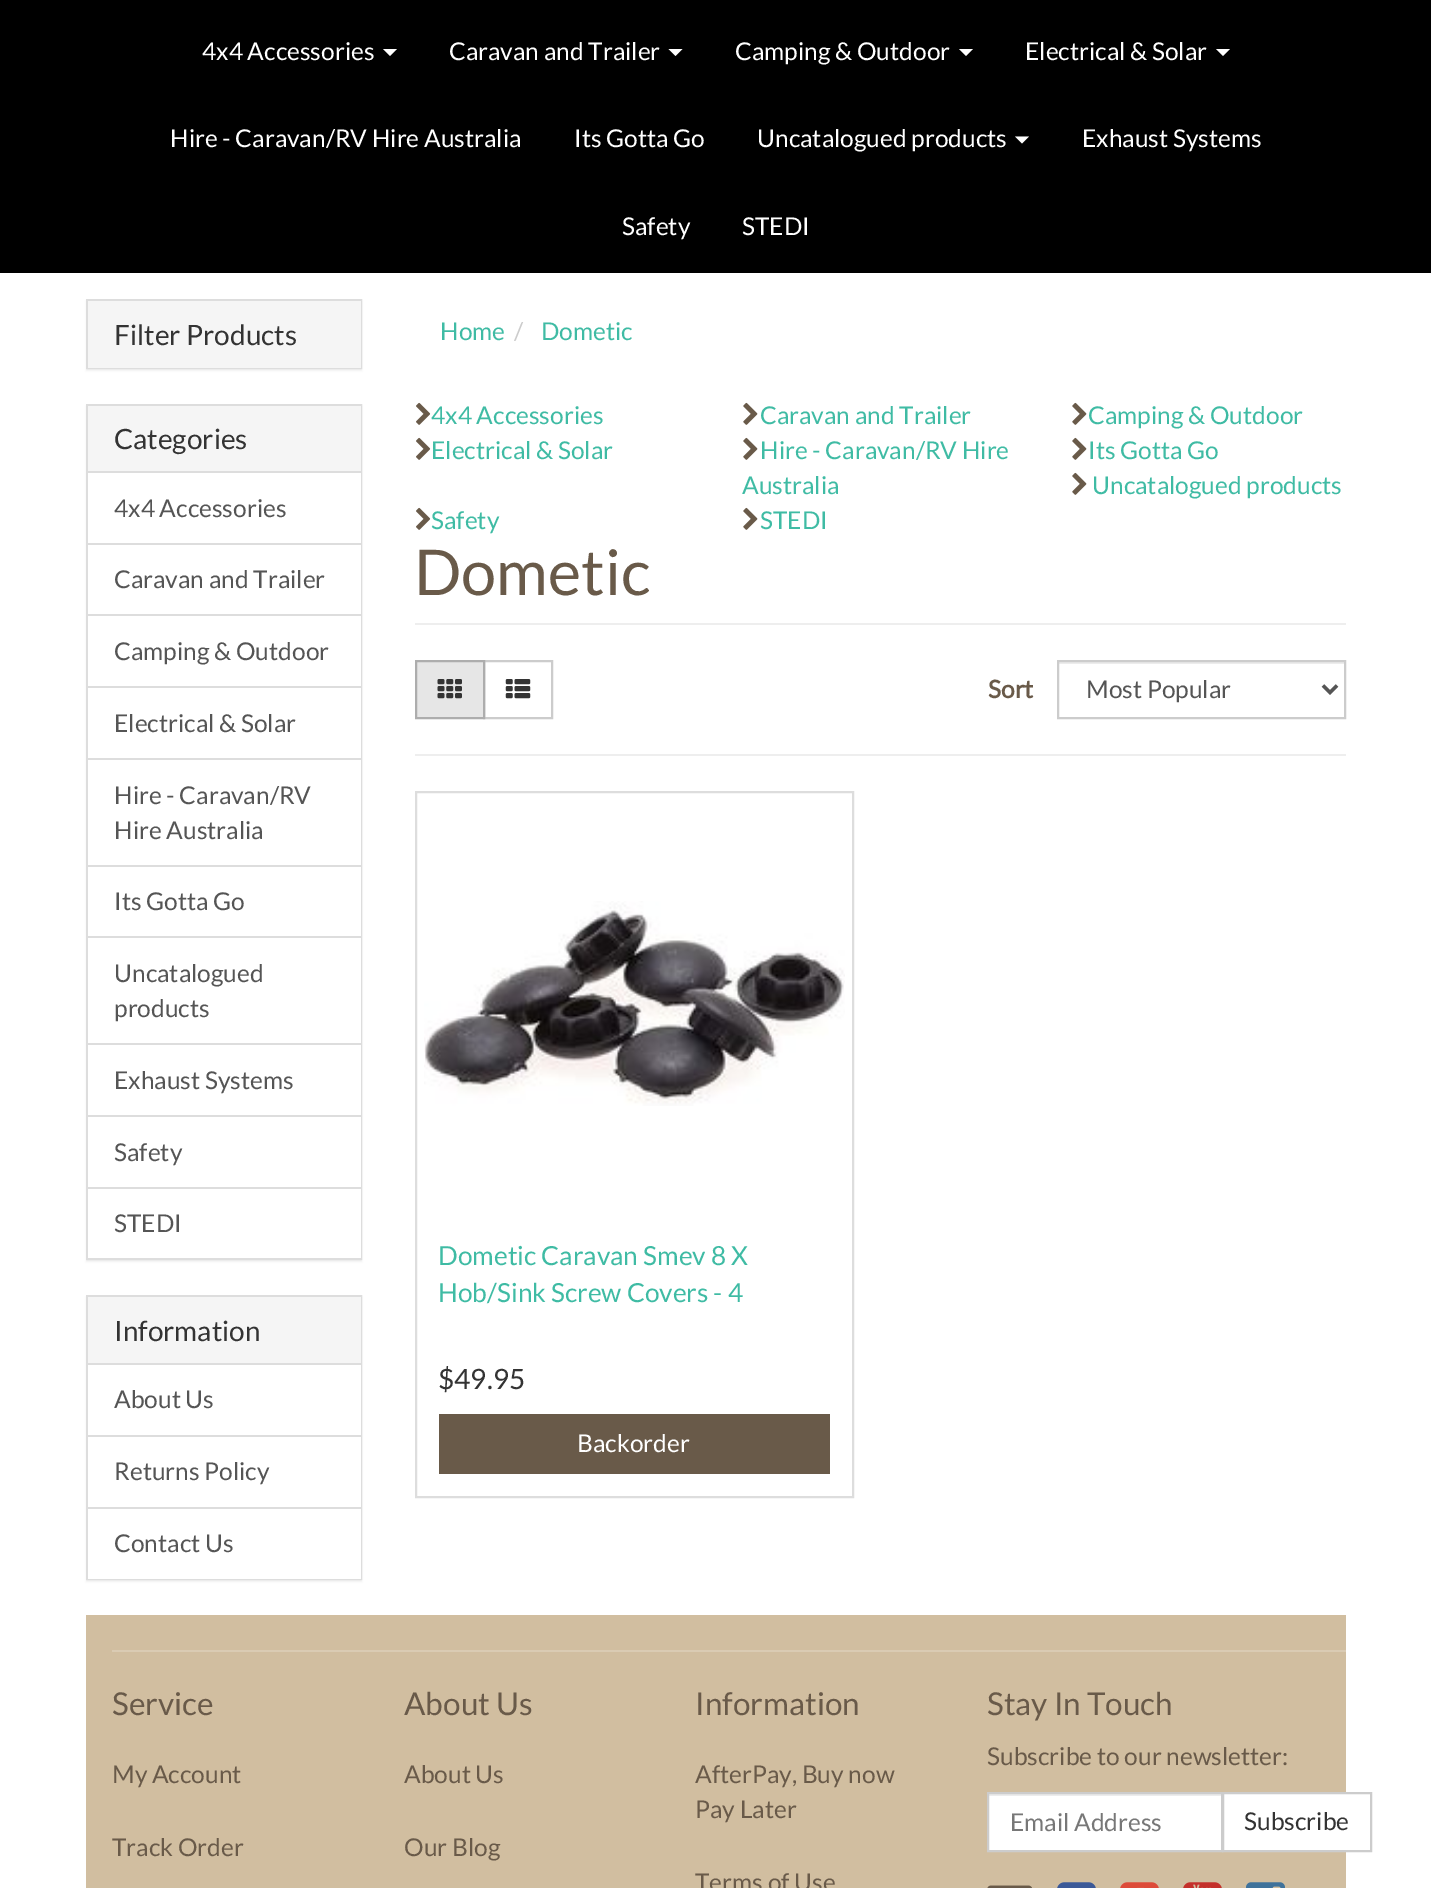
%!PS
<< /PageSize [1431 1888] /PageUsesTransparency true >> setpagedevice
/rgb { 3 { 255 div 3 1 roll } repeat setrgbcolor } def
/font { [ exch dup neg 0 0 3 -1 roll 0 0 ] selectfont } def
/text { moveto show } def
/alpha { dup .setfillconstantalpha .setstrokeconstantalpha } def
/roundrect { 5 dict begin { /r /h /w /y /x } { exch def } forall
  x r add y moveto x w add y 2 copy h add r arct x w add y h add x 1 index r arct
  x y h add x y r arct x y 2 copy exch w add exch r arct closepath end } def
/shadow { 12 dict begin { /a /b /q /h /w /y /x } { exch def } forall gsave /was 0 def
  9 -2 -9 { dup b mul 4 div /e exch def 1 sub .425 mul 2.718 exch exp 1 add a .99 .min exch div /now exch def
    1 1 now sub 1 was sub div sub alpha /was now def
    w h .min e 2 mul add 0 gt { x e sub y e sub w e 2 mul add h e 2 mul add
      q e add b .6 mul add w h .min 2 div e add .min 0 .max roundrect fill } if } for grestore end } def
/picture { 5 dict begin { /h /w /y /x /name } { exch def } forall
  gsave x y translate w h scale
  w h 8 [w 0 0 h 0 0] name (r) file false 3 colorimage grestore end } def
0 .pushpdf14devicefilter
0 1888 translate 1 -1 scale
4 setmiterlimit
255 255 255 rgb
0 0 1431 1888 rectfill
0 0 0 rgb
0 0 1431 273 rectfill
255 255 255 rgb
383 49 moveto 14 0 rlineto -7 7 rlineto closepath fill
668.5 49 moveto 14 0 rlineto -7 7 rlineto closepath fill
959 49 moveto 14 0 rlineto -7 7 rlineto closepath fill
1216 49 moveto 14 0 rlineto -7 7 rlineto closepath fill
1015 136.5 moveto 14 0 rlineto -7 7 rlineto closepath fill
0 0 0 rgb
86 301 276 70 0 1 0.05 shadow
221 221 221 rgb
2 setlinewidth
87 300 274 68 rectstroke
245 245 245 rgb
88 301 273 67 rectfill
0 0 0 rgb
86 406 276 856 0 1 0.05 shadow
221 221 221 rgb
87 405 274 854 rectstroke
245 245 245 rgb
88 406 273 65 rectfill
221 221 221 rgb
88 471 273 2 rectfill
255 255 255 rgb
88 473 273 70 rectfill
88 545 273 69 rectfill
221 221 221 rgb
88 543 273 2 rectfill
88 614 273 2 rectfill
255 255 255 rgb
88 616 273 70 rectfill
221 221 221 rgb
88 686 273 2 rectfill
255 255 255 rgb
88 688 273 70 rectfill
88 760 273 105 rectfill
221 221 221 rgb
88 758 273 2 rectfill
255 255 255 rgb
88 867 273 69 rectfill
221 221 221 rgb
88 865 273 2 rectfill
255 255 255 rgb
88 938 273 105 rectfill
221 221 221 rgb
88 936 273 2 rectfill
255 255 255 rgb
88 1045 273 70 rectfill
221 221 221 rgb
88 1043 273 2 rectfill
255 255 255 rgb
88 1117 273 70 rectfill
221 221 221 rgb
88 1115 273 2 rectfill
255 255 255 rgb
88 1189 273 69 rectfill
221 221 221 rgb
88 1187 273 2 rectfill
0 0 0 rgb
86 1297 276 285 0 1 0.05 shadow
221 221 221 rgb
87 1296 274 283 rectstroke
245 245 245 rgb
88 1297 273 66 rectfill
221 221 221 rgb
88 1363 273 2 rectfill
255 255 255 rgb
88 1365 273 70 rectfill
88 1437 273 70 rectfill
221 221 221 rgb
88 1435 273 2 rectfill
255 255 255 rgb
88 1509 273 70 rectfill
221 221 221 rgb
88 1507 273 2 rectfill
(img_01.rgb) 416 402 15 23 picture
(img_02.rgb) 743 402 15 23 picture
(img_02.rgb) 1072 402 15 23 picture
(img_01.rgb) 416 437 15 23 picture
(img_02.rgb) 743 437 15 23 picture
(img_02.rgb) 1072 437 15 23 picture
(img_02.rgb) 1072 472 15 23 picture
(img_01.rgb) 416 507 15 23 picture
(img_02.rgb) 743 507 15 23 picture
238 238 238 rgb
415 623 931 2 rectfill
204 204 204 rgb
484 661 68 57 rectstroke
230 230 230 rgb
416 661 moveto 68 0 rlineto 0 57 rlineto -68 0 rlineto closepath gsave fill grestore
173 173 173 rgb
stroke
(img_03.rgb) 437 679 25 20 picture
(img_04.rgb) 505 679 26 20 picture
236 236 236 rgb
1059 662 285 2 rectfill
204 204 204 rgb
1058 661 287 57 rectstroke
85 85 85 rgb
3.5 setlinewidth
1323 685.5 moveto 7 7 rlineto 7 -7 rlineto stroke
238 238 238 rgb
415 754 931 2 rectfill
221 221 221 rgb
2 setlinewidth
416 792 437 705 rectstroke
(img_05.rgb) 424 901 421 205 picture
105 90 73 rgb
439 1414 391 60 rectfill
209 190 160 rgb
86 1615 1260 273 rectfill
218 203 179 rgb
112 1650 1234 2 rectfill
255 255 255 rgb
989 1796 232 54 rectfill
236 236 236 rgb
989 1794 233 2 rectfill
255 255 255 rgb
1224 1794 122 56 rectfill
204 204 204 rgb
1223 1793 148 58 rectstroke
988 1793 234 58 rectstroke
(img_06.rgb) 987 1885 45 3 picture
(img_07.rgb) 1057 1882 39 6 picture
(img_08.rgb) 1120 1882 39 6 picture
(img_09.rgb) 1183 1882 39 6 picture
(img_10.rgb) 1246 1882 39 6 picture
/Lato-Regular 24.5 font
255 255 255 rgb
(4x4 Accessories) 202 60 text
(Caravan and Trailer) 449 60 text
(Camping & Outdoor) 735 60 text
(Electrical & Solar) 1025 60 text
(Hire - Caravan/RV Hire Australia) 170 147 text
(Its Gotta Go) 574 147 text
(Uncatalogued products) 757 147 text
(Exhaust Systems) 1082 147 text
(Safety) 622 235 text
(STEDI) 742 235 text
/Lato-Regular 28 font
51 51 51 rgb
(Filter Products) 114 345 text
(Categories) 114 449 text
/Lato-Regular 24.5 font
85 85 85 rgb
(4x4 Accessories) 114 517 text
(Caravan and Trailer) 114 588 text
(Camping & Outdoor) 114 660 text
(Electrical & Solar) 114 732 text
(Hire - Caravan/RV) 114 804 text
(Hire Australia) 114 839 text
(Its Gotta Go) 114 910 text
(Uncatalogued) 114 982 text
(products) 114 1017 text
(Exhaust Systems) 114 1089 text
(Safety) 114 1161 text
(STEDI) 114 1232 text
/Lato-Regular 28 font
51 51 51 rgb
(Information) 114 1341 text
/Lato-Regular 24.5 font
85 85 85 rgb
(About Us) 114 1408 text
(Returns Policy) 114 1480 text
(Contact Us) 114 1552 text
63 187 164 rgb
(Home) 440 340 text
204 204 204 rgb
(/) 514 340 text
63 187 164 rgb
(Dometic) 541 340 text
(4x4 Accessories) 431 424 text
(Caravan and Trailer) 760 424 text
(Camping & Outdoor) 1088 424 text
(Electrical & Solar) 431 459 text
(Hire - Caravan/RV Hire) 760 459 text
(Australia) 742 494 text
(Its Gotta Go) 1088 459 text
(Uncatalogued products) 1092 494 text
(Safety) 431 529 text
(STEDI) 760 529 text
/Lato-Regular 63 font
105 90 73 rgb
(Dometic) 414 595 text
/Lato-Bold 24.5 font
(Sort) 988 698 text
/Lato-Regular 24.5 font
85 85 85 rgb
(Most Popular) 1086 698 text
/Lato-Regular 26.25 font
63 187 164 rgb
(Dometic Caravan Smev 8 X) 438 1265 text
(Hob/Sink Screw Covers - 4) 438 1302 text
/Lato-Regular 28 font
51 51 51 rgb
($49.95) 438 1389 text
/Lato-Regular 24.5 font
255 255 255 rgb
(Backorder) 577 1452 text
/Lato-Regular 31.5 font
105 90 73 rgb
(Service) 112 1715 text
/Lato-Regular 24.5 font
(My Account) 112 1783 text
(Track Order) 112 1856 text
/Lato-Regular 31.5 font
(About Us) 404 1715 text
/Lato-Regular 24.5 font
(About Us) 404 1783 text
(Our Blog) 404 1856 text
/Lato-Regular 31.5 font
(Information) 695 1715 text
/Lato-Regular 24.5 font
(AfterPay, Buy now) 695 1783 text
(Pay Later) 695 1818 text
(Terms of Use) 695 1891 text
/Lato-Regular 31.5 font
(Stay In Touch) 987 1715 text
/Lato-Regular 24.5 font
(Subscribe to our newsletter:) 987 1765 text
119 119 119 rgb
(Email Address) 1010 1831 text
51 51 51 rgb
(Subscribe) 1244 1830 text
.poppdf14devicefilter showpage
